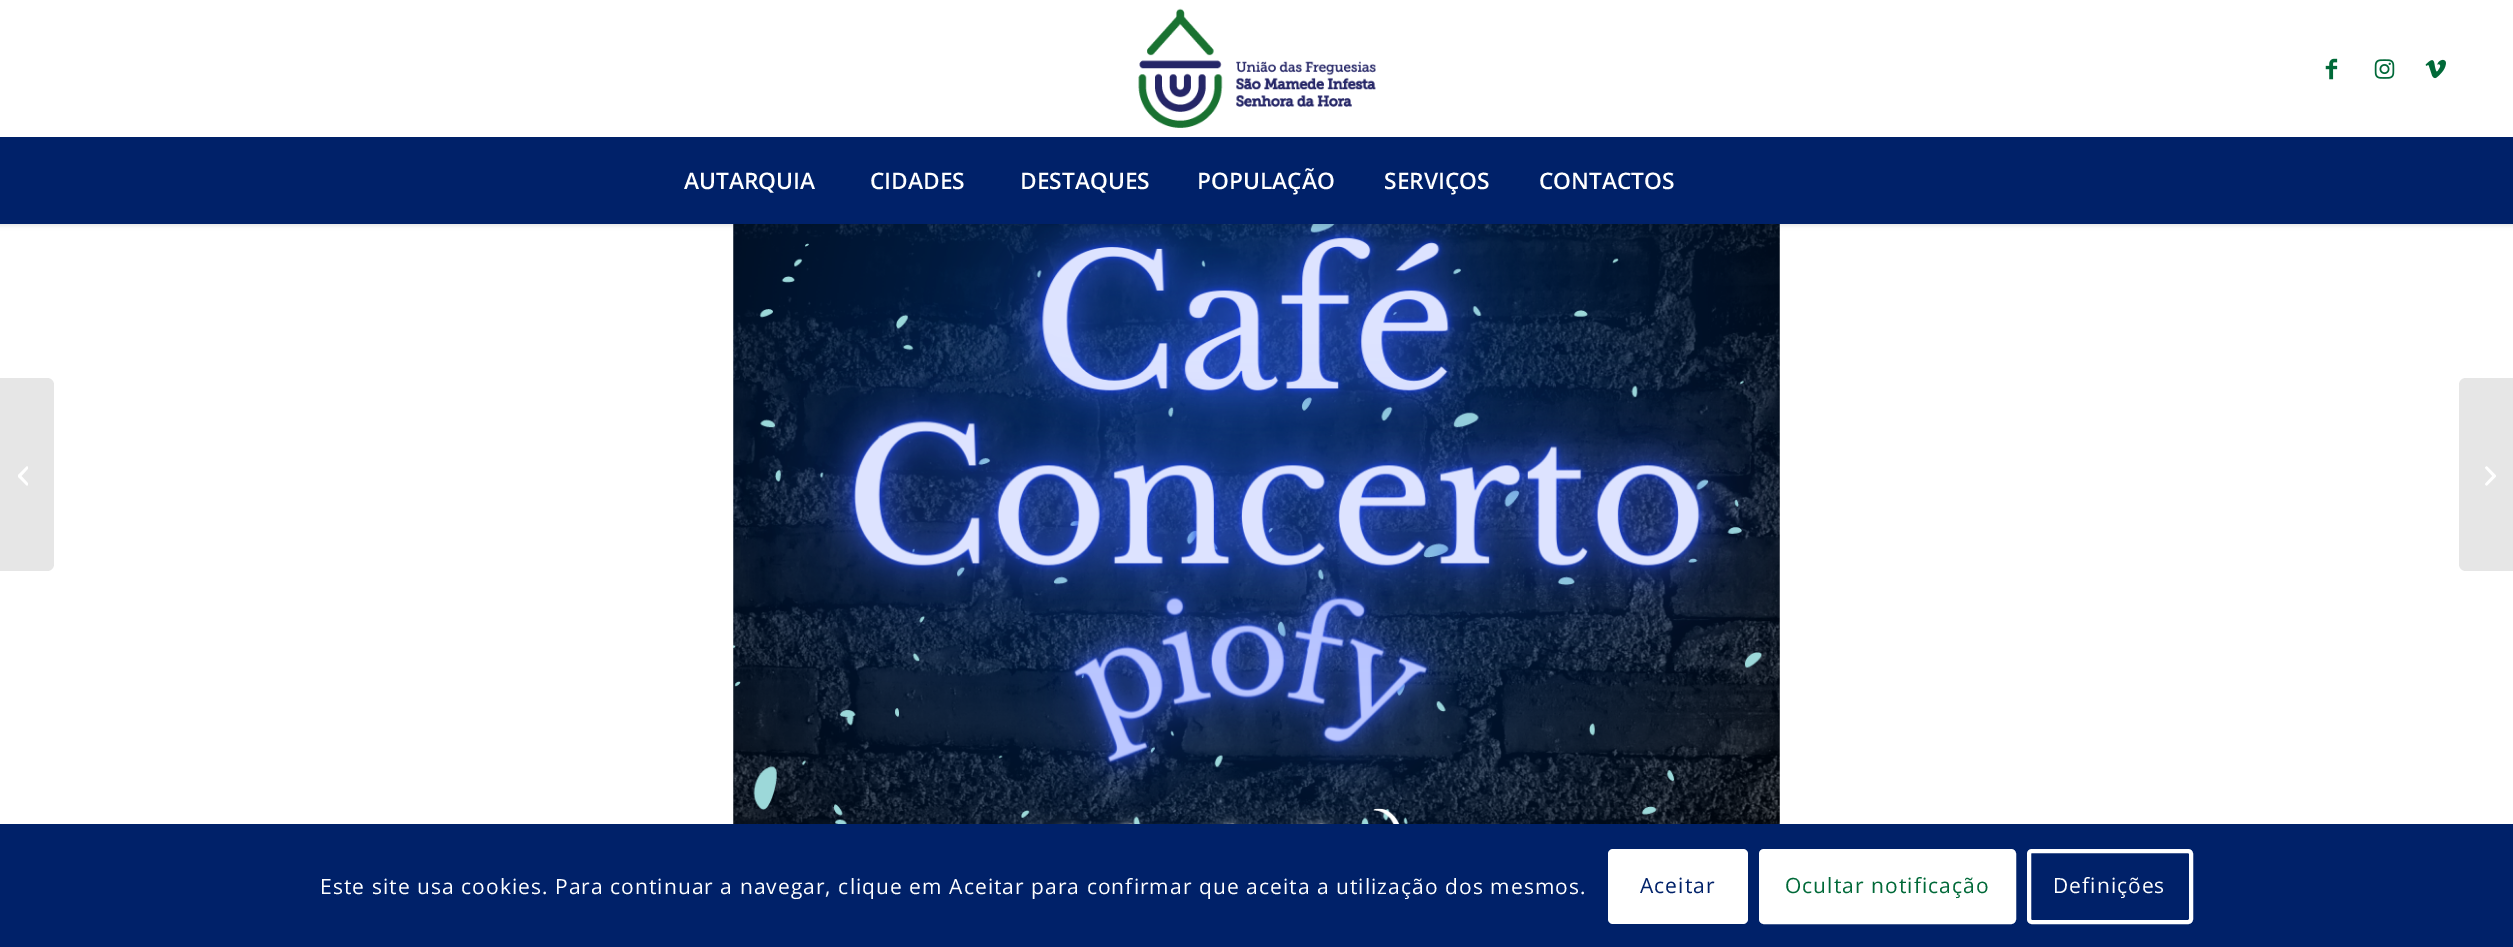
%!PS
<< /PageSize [2513 947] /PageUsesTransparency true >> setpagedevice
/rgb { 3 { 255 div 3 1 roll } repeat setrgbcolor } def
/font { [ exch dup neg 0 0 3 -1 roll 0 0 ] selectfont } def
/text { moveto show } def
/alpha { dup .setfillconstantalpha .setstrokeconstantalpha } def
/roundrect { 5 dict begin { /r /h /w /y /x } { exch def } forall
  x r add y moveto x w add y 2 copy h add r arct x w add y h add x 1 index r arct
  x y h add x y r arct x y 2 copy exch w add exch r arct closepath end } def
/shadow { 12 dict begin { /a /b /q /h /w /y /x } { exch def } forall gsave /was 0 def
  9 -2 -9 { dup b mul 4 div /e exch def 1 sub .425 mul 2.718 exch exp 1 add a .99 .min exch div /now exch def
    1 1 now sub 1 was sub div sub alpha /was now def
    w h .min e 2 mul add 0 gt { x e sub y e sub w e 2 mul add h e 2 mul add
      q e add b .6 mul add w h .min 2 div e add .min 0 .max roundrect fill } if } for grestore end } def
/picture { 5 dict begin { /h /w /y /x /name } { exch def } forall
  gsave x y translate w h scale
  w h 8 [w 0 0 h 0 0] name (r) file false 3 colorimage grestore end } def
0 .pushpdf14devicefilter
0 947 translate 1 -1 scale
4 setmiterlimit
255 255 255 rgb
0 0 2513 947 rectfill
(img_06.rgb) 733 224 1047 600 picture
0 0 0 rgb
-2 -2 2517 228 0 2 0.1 shadow
255 255 255 rgb
0 0 2513 137 rectfill
(img_01.rgb) 1138 8 238 120 picture
(img_02.rgb) 2325 58 13 22 picture
(img_03.rgb) 2374 59 21 20 picture
(img_04.rgb) 2425 59 21 20 picture
0 33 105 rgb
0 137 2513 87 rectfill
230 230 230 rgb
0 378 moveto 47 0 rlineto 4 0 7 3 7 7 rcurveto 0 179 rlineto 0 4 -3 7 -7 7 rcurveto -47 0 rlineto closepath fill
(img_05.rgb) 18 466 10 20 picture
2466 378 moveto 47 0 rlineto 0 193 rlineto -47 0 rlineto -4 0 -7 -3 -7 -7 rcurveto 0 -179 rlineto 0 -4 3 -7 7 -7 rcurveto closepath fill
(img_07.rgb) 2485 466 11 20 picture
0 33 105 rgb
0 824 2513 123 rectfill
255 255 255 rgb
1608 849 140 75 5 roundrect fill
1761 851 253 71 3 roundrect gsave fill grestore
4 setlinewidth
stroke
2029 851 162 71 3 roundrect stroke
/OpenSans-SemiBold 22.75 font
(AUTARQUIA) 684 189 text
(CIDADES) 870 189 text
(DESTAQUES) 1020 189 text
(POPULAÇÃO) 1197 189 text
(SERVIÇOS) 1384 189 text
(CONTACTOS) 1539 189 text
/OpenSans-Regular 21 font
320 894 moveto 1.05 0 (Este site usa cookies. Para continuar a navegar, clique em Aceitar para confirmar que aceita a utilização dos mesmos.) ashow
0 33 105 rgb
1640 893 moveto 1.05 0 (Aceitar) ashow
0 105 56 rgb
1785 893 moveto 1.05 0 (Ocultar notificação) ashow
255 255 255 rgb
2053 893 moveto 1.05 0 (Definições) ashow
.poppdf14devicefilter showpage
